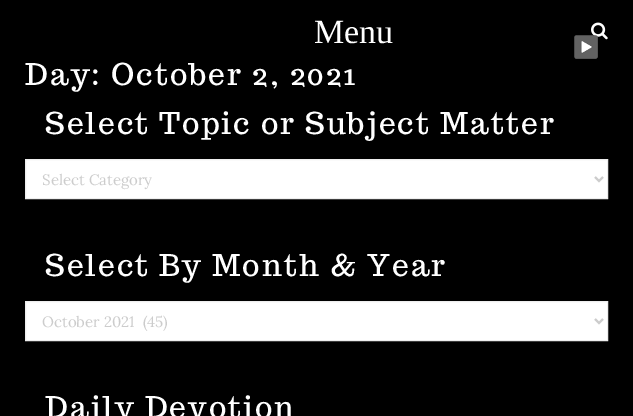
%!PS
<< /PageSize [633 416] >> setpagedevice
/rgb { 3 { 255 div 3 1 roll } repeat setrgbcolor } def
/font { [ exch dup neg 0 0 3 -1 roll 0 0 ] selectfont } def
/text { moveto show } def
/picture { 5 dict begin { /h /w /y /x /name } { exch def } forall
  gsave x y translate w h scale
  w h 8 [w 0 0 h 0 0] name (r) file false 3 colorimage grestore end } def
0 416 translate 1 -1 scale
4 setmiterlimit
0 0 0 rgb
0 0 633 416 rectfill
(img_01.rgb) 591 22 17 18 picture
255 255 255 rgb
25.5 159.5 moveto 582 0 rlineto 0 39 rlineto -582 0 rlineto closepath gsave fill grestore
238 238 238 rgb
stroke
204 204 204 rgb
2 setlinewidth
595 177 moveto 4 4 rlineto 4 -4 rlineto stroke
255 255 255 rgb
25.5 301.5 moveto 582 0 rlineto 0 39 rlineto -582 0 rlineto closepath gsave fill grestore
238 238 238 rgb
1 setlinewidth
stroke
204 204 204 rgb
2 setlinewidth
595 319 moveto 4 4 rlineto 4 -4 rlineto stroke
(img_02.rgb) 574 35 24 24 picture
/LiberationSerif-Regular 34 font
255 255 255 rgb
(Menu) 314 43 text
/Trocchi-Regular 30 font
25 85 moveto 2 0 (Day: October 2, 2021) ashow
45 134 moveto 2 0 (Select Topic or Subject Matter) ashow
/Lora-Regular 15 font
204 204 204 rgb
(Select Category) 42 185 text
/Trocchi-Regular 30 font
255 255 255 rgb
45 276 moveto 2 0 (Select By Month & Year) ashow
/Lora-Regular 15 font
204 204 204 rgb
(October 2021  \(45\)) 42 327 text
/Trocchi-Regular 30 font
255 255 255 rgb
45 418 moveto 2 0 (Daily Devotion) ashow
showpage
